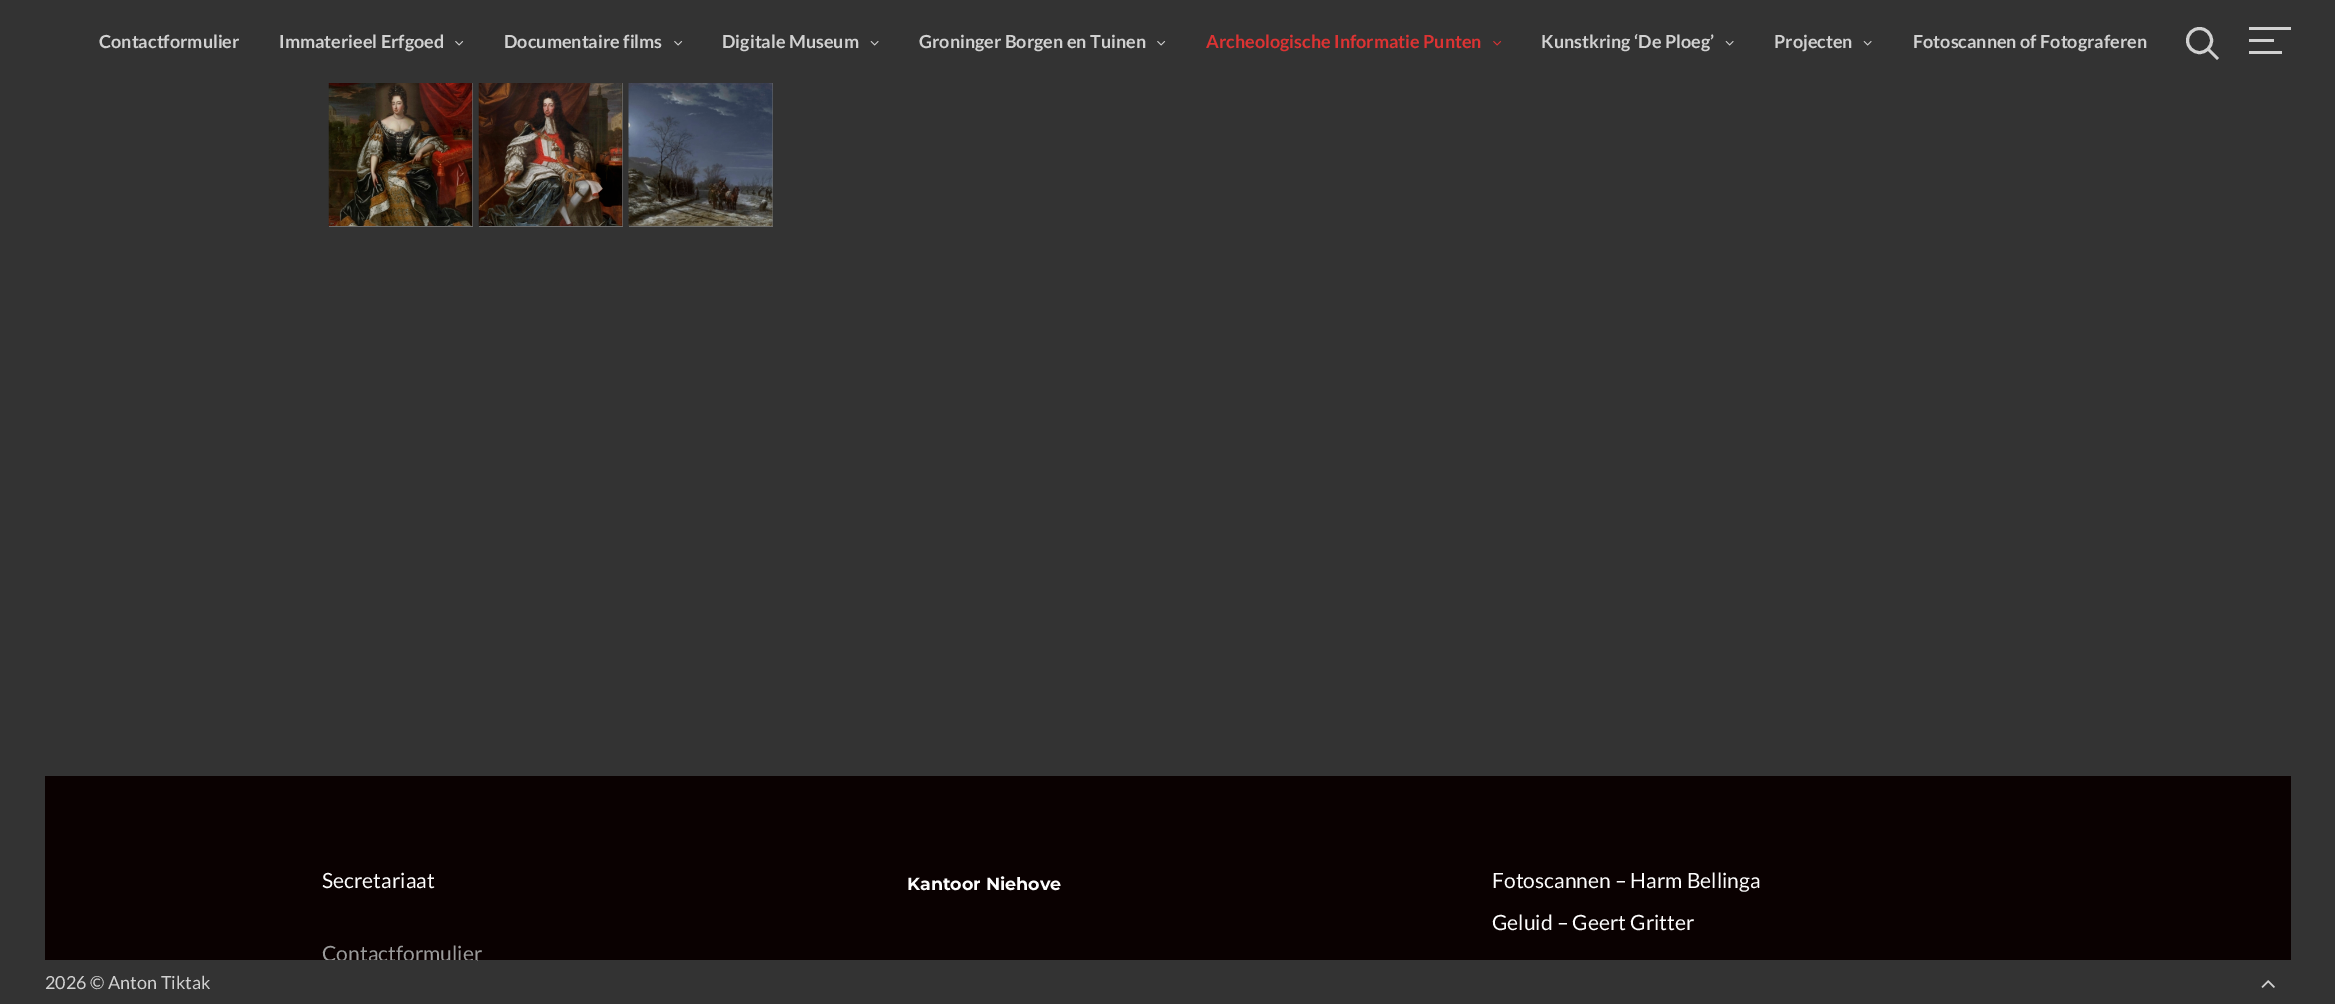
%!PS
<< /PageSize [2335 1004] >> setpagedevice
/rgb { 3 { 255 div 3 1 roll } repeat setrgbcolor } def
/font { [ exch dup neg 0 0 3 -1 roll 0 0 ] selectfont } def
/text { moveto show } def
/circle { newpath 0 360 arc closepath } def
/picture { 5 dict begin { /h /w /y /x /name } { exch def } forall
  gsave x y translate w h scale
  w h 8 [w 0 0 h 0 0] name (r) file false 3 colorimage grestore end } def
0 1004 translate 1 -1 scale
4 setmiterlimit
51 51 51 rgb
0 0 2335 1004 rectfill
(img_01.rgb) 455 41 9 5 picture
(img_01.rgb) 674 41 9 5 picture
(img_02.rgb) 870 41 9 5 picture
(img_01.rgb) 1157 41 9 5 picture
(img_03.rgb) 1493 41 9 5 picture
(img_02.rgb) 1725 41 9 5 picture
(img_02.rgb) 1863 41 9 5 picture
209 209 209 rgb
3 setlinewidth
2199.5 40.5 12 circle stroke
2209.5 48.5 moveto 9.5 9.5 rlineto -2 2 rlineto -9.5 -9.5 rlineto closepath fill
2249 27 42 3 rectfill
2249 39 25 3 rectfill
2249 51 33 3 rectfill
111 111 111 rgb
329 83 144 144 rectfill
(img_04.rgb) 328 83 145 143 picture
479 83 144 144 rectfill
(img_05.rgb) 478 83 145 143 picture
629 83 144 144 rectfill
(img_06.rgb) 628 83 145 143 picture
10 1 1 rgb
45 776 2246 184 rectfill
(img_07.rgb) 2261 980 14 8 picture
/Lato-Bold 18 font
209 209 209 rgb
(Contactformulier) 99 48 text
(Immaterieel Erfgoed) 279 48 text
(Documentaire films) 504 48 text
(Digitale Museum) 722 48 text
(Groninger Borgen en Tuinen) 919 48 text
221 51 51 rgb
(Archeologische Informatie Punten) 1206 48 text
209 209 209 rgb
(Kunstkring ‘De Ploeg’) 1541 48 text
(Projecten) 1774 48 text
(Fotoscannen of Fotograferen) 1913 48 text
/Lato-Regular 21 font
253 253 253 rgb
(Secretariaat) 322 888 text
154 154 154 rgb
(Contactformulier) 322 961 text
/Montserrat-Bold 17.5 font
253 253 253 rgb
(Kantoor Niehove) 907 890 text
/Lato-Regular 21 font
(Fotoscannen – Harm Bellinga) 1492 888 text
(Geluid – Geert Gritter) 1492 930 text
51 51 51 rgb
326 960 151 2 rectfill
/Lato-Regular 18 font
209 209 209 rgb
(2026 © Anton Tiktak) 45 989 text
showpage
